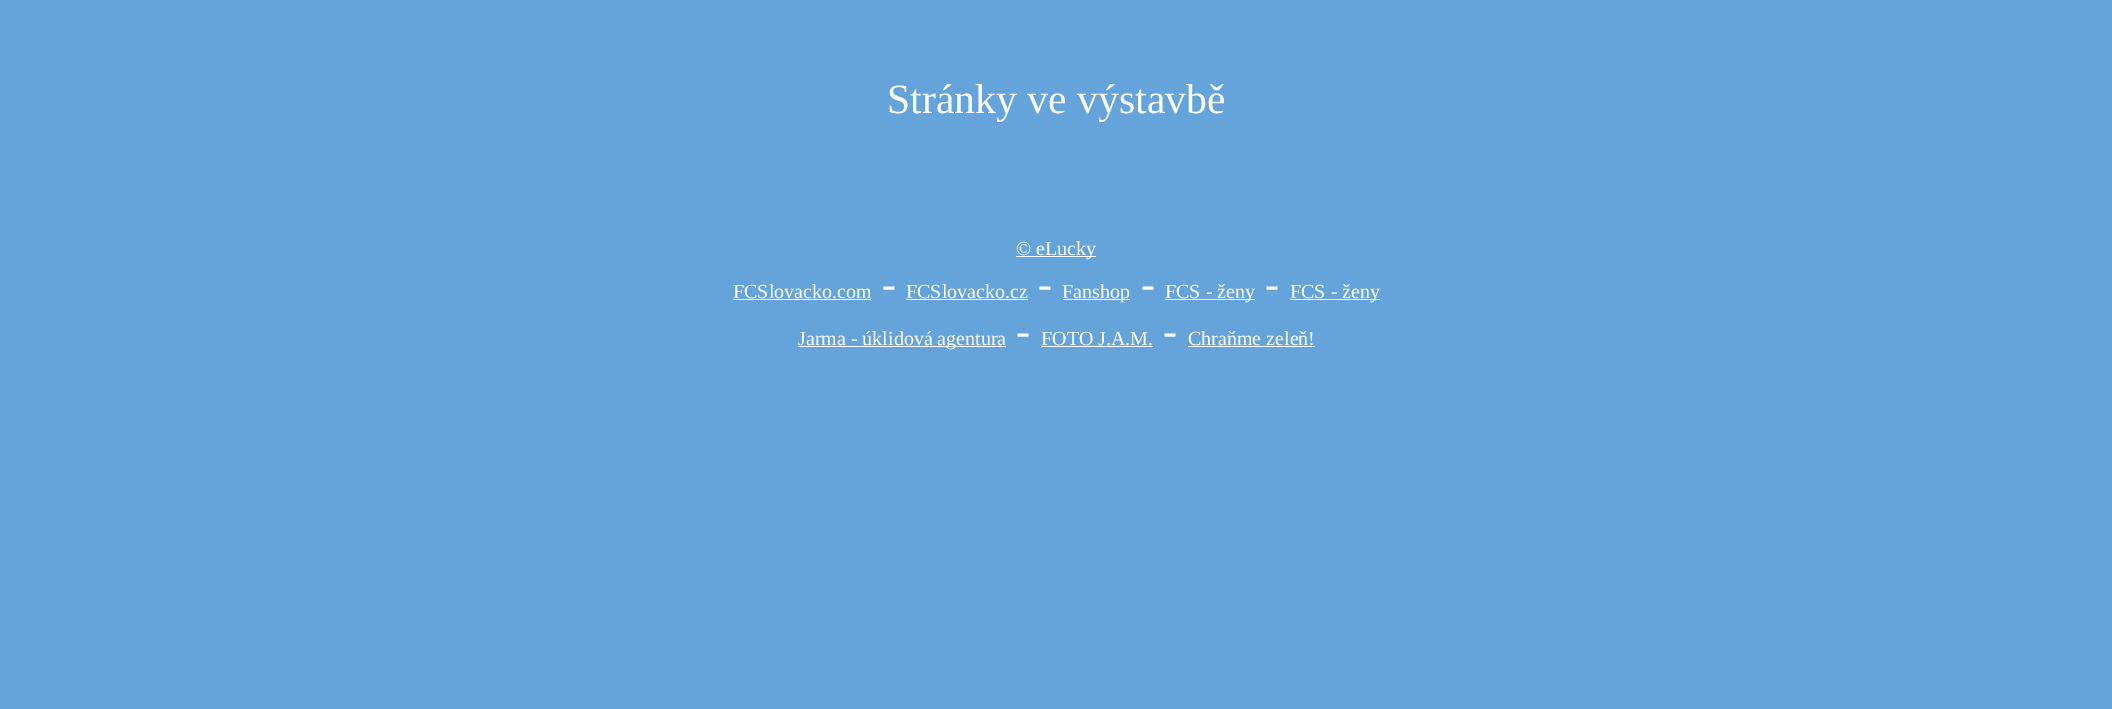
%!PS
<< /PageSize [2112 709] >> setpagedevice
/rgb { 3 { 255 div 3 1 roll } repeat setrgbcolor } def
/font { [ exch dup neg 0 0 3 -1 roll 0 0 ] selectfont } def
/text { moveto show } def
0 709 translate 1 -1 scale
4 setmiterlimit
100 164 218 rgb
0 0 2112 709 rectfill
255 255 255 rgb
1016 256 80 1 rectfill
733 299 138 1 rectfill
906 299 122 1 rectfill
1063 299 67 1 rectfill
1165 299 90 1 rectfill
1290 299 90 1 rectfill
798 346 208 1 rectfill
1041 346 112 1 rectfill
1188 346 127 1 rectfill
/LiberationSerif-Regular 41.75 font
(Stránky ve výstavbě) 887 113 text
/LiberationSerif-Regular 20 font
(© eLucky) 1016 255 text
(FCSlovacko.com) 733 298 text
/LiberationSerif-Regular 41.75 font
(-) 882 298 text
/LiberationSerif-Regular 20 font
(FCSlovacko.cz) 906 298 text
/LiberationSerif-Regular 41.75 font
(-) 1038 298 text
/LiberationSerif-Regular 20 font
(Fanshop) 1062 298 text
/LiberationSerif-Regular 41.75 font
(-) 1141 298 text
/LiberationSerif-Regular 20 font
(FCS - ženy) 1165 298 text
/LiberationSerif-Regular 41.75 font
(-) 1265 298 text
/LiberationSerif-Regular 20 font
(FCS - ženy) 1290 298 text
(Jarma - úklidová agentura) 798 345 text
/LiberationSerif-Regular 41.75 font
(-) 1016 345 text
/LiberationSerif-Regular 20 font
(FOTO J.A.M.) 1041 345 text
/LiberationSerif-Regular 41.75 font
(-) 1163 345 text
/LiberationSerif-Regular 20 font
(Chraňme zeleň!) 1188 345 text
showpage
